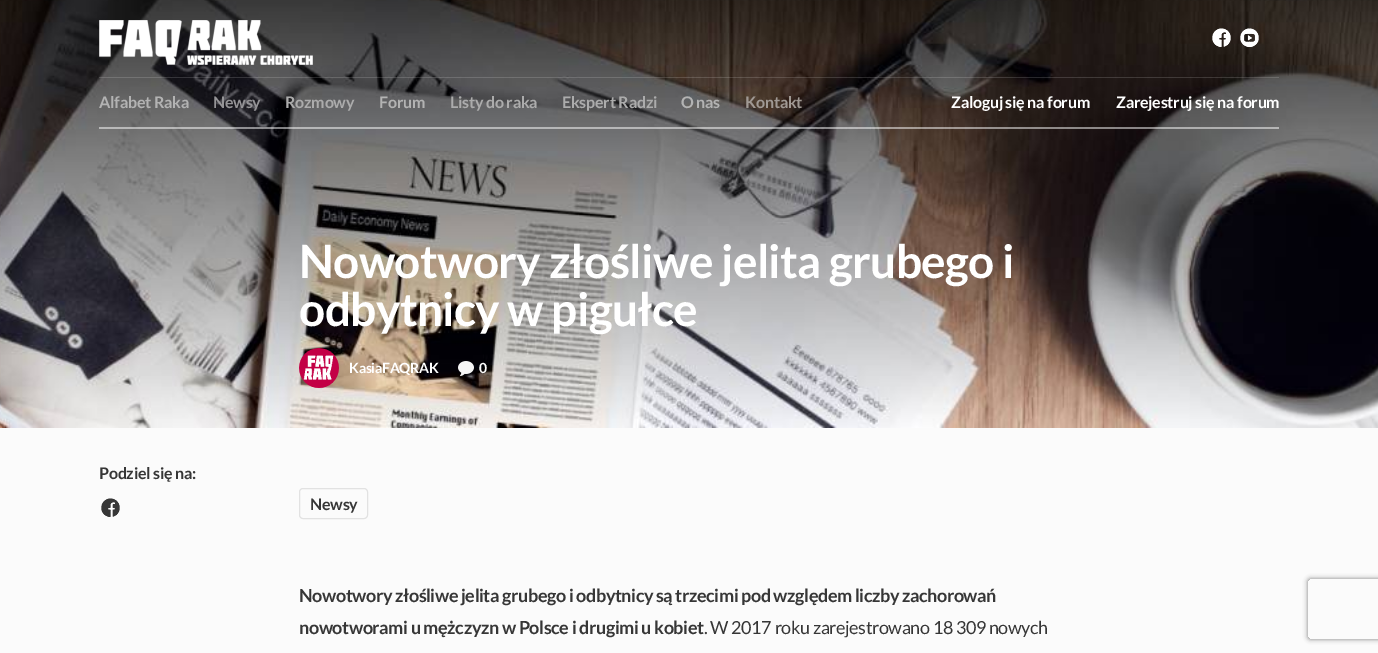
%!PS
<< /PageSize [1378 653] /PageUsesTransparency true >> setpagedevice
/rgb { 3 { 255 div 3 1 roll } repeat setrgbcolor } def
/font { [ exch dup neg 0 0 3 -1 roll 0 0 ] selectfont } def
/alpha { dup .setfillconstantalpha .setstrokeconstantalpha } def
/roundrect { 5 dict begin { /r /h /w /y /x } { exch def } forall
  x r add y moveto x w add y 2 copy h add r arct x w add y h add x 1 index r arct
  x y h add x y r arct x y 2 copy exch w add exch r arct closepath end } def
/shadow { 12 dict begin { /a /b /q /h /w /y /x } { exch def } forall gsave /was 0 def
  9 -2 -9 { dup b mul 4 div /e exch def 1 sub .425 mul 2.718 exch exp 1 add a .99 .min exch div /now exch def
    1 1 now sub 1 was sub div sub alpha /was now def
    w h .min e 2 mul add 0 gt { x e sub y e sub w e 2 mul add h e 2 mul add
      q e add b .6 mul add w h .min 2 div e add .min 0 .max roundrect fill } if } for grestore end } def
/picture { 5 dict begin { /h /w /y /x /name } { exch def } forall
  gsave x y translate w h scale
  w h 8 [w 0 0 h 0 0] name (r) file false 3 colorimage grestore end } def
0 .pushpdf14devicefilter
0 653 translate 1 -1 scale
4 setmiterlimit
255 255 255 rgb
0 0 1378 653 rectfill
(img_04.rgb) 0 0 1378 428 picture
0.15 alpha
99 77 1180 1 rectfill
1 alpha
(img_01.rgb) 99 20 214 45 picture
(img_02.rgb) 1212 28 19 19 picture
(img_03.rgb) 1240 28 19 19 picture
0.5 alpha
99 127 1180 2 rectfill
1 alpha
(img_05.rgb) 299 348 40 40 picture
(img_06.rgb) 458 361 16 15 picture
251 251 251 rgb
0 428 1378 225 rectfill
(img_07.rgb) 101 498 19 19 picture
226 226 226 rgb
299.5 488.5 68 30 3.5 roundrect stroke
gsave
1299 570 moveto 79 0 rlineto 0 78 rlineto -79 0 rlineto closepath 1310 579 moveto 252 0 rlineto 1 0 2 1 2 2 rcurveto 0 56 rlineto 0 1 -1 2 -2 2 rcurveto -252 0 rlineto -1 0 -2 -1 -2 -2 rcurveto 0 -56 rlineto 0 -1 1 -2 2 -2 rcurveto closepath eoclip newpath
128 128 128 rgb
1308 579 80 60 2 2.5 1 shadow
grestore
/Lato-Bold 16 font
179 179 179 rgb
99 108 moveto -0.25 0 (Alfabet Raka) ashow
149 148 151 rgb
213 108 moveto -0.25 0 (Newsy) ashow
172 172 172 rgb
285 108 moveto -0.25 0 (Rozmowy) ashow
179 179 179 rgb
379 108 moveto -0.25 0 (Forum) ashow
172 172 172 rgb
450 108 moveto -0.25 0 (Listy do raka) ashow
562 108 moveto -0.25 0 (Ekspert Radzi) ashow
179 179 179 rgb
681 108 moveto -0.25 0 (O nas) ashow
160 153 148 rgb
745 108 moveto -0.25 0 (Kontakt) ashow
255 255 255 rgb
951 108 moveto -0.25 0 (Zaloguj się na forum) ashow
1116 108 moveto -0.25 0 (Zarejestruj się na forum) ashow
/Lato-Bold 46 font
299 278 moveto -0.65 0 (Nowotwory złośliwe jelita grubego i) ashow
299 326 moveto -0.65 0 (odbytnicy w pigułce) ashow
/Lato-Bold 14 font
349 373 moveto -0.25 0 (KasiaFAQRAK) ashow
479 373 moveto -0.25 0 (0) ashow
/Lato-Bold 16 font
54 54 54 rgb
99 479 moveto -0.25 0 (Podziel się na:) ashow
310 510 moveto -0.25 0 (Newsy) ashow
/Lato-Bold 18 font
299 602 moveto -0.42 0 (Nowotwory złośliwe jelita grubego i odbytnicy są trzecimi pod względem liczby zachorowań) ashow
299 634 moveto -0.42 0 (nowotworami u mężczyzn w Polsce i drugimi u kobiet) ashow
/Lato-Regular 18 font
704 634 moveto -0.42 0 (. W 2017 roku zarejestrowano 18 309 nowych) ashow
.poppdf14devicefilter showpage
